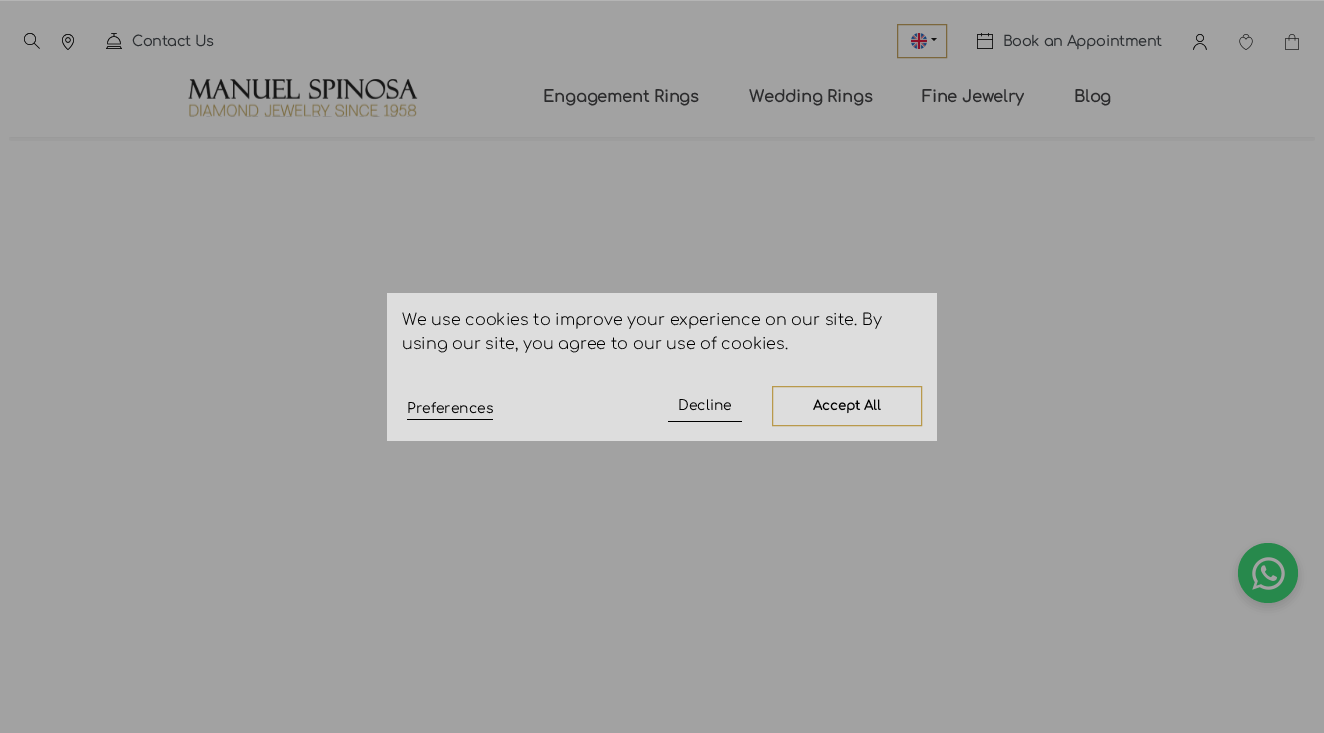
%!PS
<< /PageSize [1324 733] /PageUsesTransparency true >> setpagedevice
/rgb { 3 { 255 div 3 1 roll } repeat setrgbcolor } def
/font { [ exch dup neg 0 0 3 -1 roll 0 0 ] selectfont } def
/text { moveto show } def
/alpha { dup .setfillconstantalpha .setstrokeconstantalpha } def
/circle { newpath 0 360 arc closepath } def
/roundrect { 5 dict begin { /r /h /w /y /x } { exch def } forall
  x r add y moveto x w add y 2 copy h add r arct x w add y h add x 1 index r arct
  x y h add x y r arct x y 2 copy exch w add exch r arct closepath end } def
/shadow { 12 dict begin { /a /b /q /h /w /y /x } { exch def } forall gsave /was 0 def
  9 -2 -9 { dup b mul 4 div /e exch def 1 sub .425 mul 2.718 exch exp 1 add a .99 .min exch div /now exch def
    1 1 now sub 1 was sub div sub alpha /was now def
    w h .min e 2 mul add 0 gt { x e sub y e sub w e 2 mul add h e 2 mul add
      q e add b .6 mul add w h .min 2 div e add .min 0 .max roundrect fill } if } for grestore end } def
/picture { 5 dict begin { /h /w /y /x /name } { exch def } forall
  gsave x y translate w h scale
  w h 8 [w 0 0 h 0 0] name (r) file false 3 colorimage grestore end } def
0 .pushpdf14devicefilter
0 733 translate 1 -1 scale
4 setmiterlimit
255 255 255 rgb
0 0 1324 733 rectfill
(img_01.rgb) 24 33 16 16 picture
(img_02.rgb) 62 34 12 16 picture
(img_03.rgb) 106 33 16 16 picture
185 153 75 rgb
897.5 24.5 49 33 rectstroke
(img_04.rgb) 911 33 16 16 picture
0 0 0 rgb
931 38 moveto 6 0 rlineto -3 3 rlineto closepath fill
(img_05.rgb) 977 33 16 16 picture
(img_06.rgb) 1193 34 14 16 picture
(img_07.rgb) 1239 34 14 16 picture
(img_08.rgb) 1285 34 14 16 picture
gsave
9 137 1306 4 rectclip
33 35 38 rgb
10 78 1304 59 0 5 0.1 shadow
grestore
(img_09.rgb) 188 79 230 38 picture
1238 547 60 60 30 5 0.15 shadow
37 211 102 rgb
1268 573 30 circle fill
(img_10.rgb) 1252 557 33 33 picture
gsave
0 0 moveto 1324 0 rlineto 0 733 rlineto -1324 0 rlineto closepath 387 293 moveto 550 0 rlineto 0 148 rlineto -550 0 rlineto closepath eoclip newpath
0 0 0 rgb
-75 -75 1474 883 0 25 0.3 shadow
grestore
/Comfortaa-Bold 14 font
33 37 41 rgb
(Contact Us) 132 46 text
(Book an Appointment) 1003 46 text
/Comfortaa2-Bold 16 font
33 33 35 rgb
(Engagement Rings) 543 102 text
(Wedding Rings) 749 102 text
(Fine Jewelry) 922 102 text
(Blog) 1074 102 text
0.2 alpha
87 87 87 rgb
0 1 1324 732 rectfill
/Comfortaa-Light 16 font
1 alpha
0 0 0 rgb
(We use cookies to improve your experience on our site. By) 402 325 text
(using our site, you agree to our use of cookies.) 402 349 text
/Comfortaa-Regular 14 font
(Preferences) 407 413 text
407 419 86 1 rectfill
(Decline) 678 410 text
668 421 74 1 rectfill
185 153 75 rgb
772.5 386.5 149 39 rectstroke
/Comfortaa2-Bold 13 font
0 0 0 rgb
(Accept All) 813 410 text
.poppdf14devicefilter showpage
